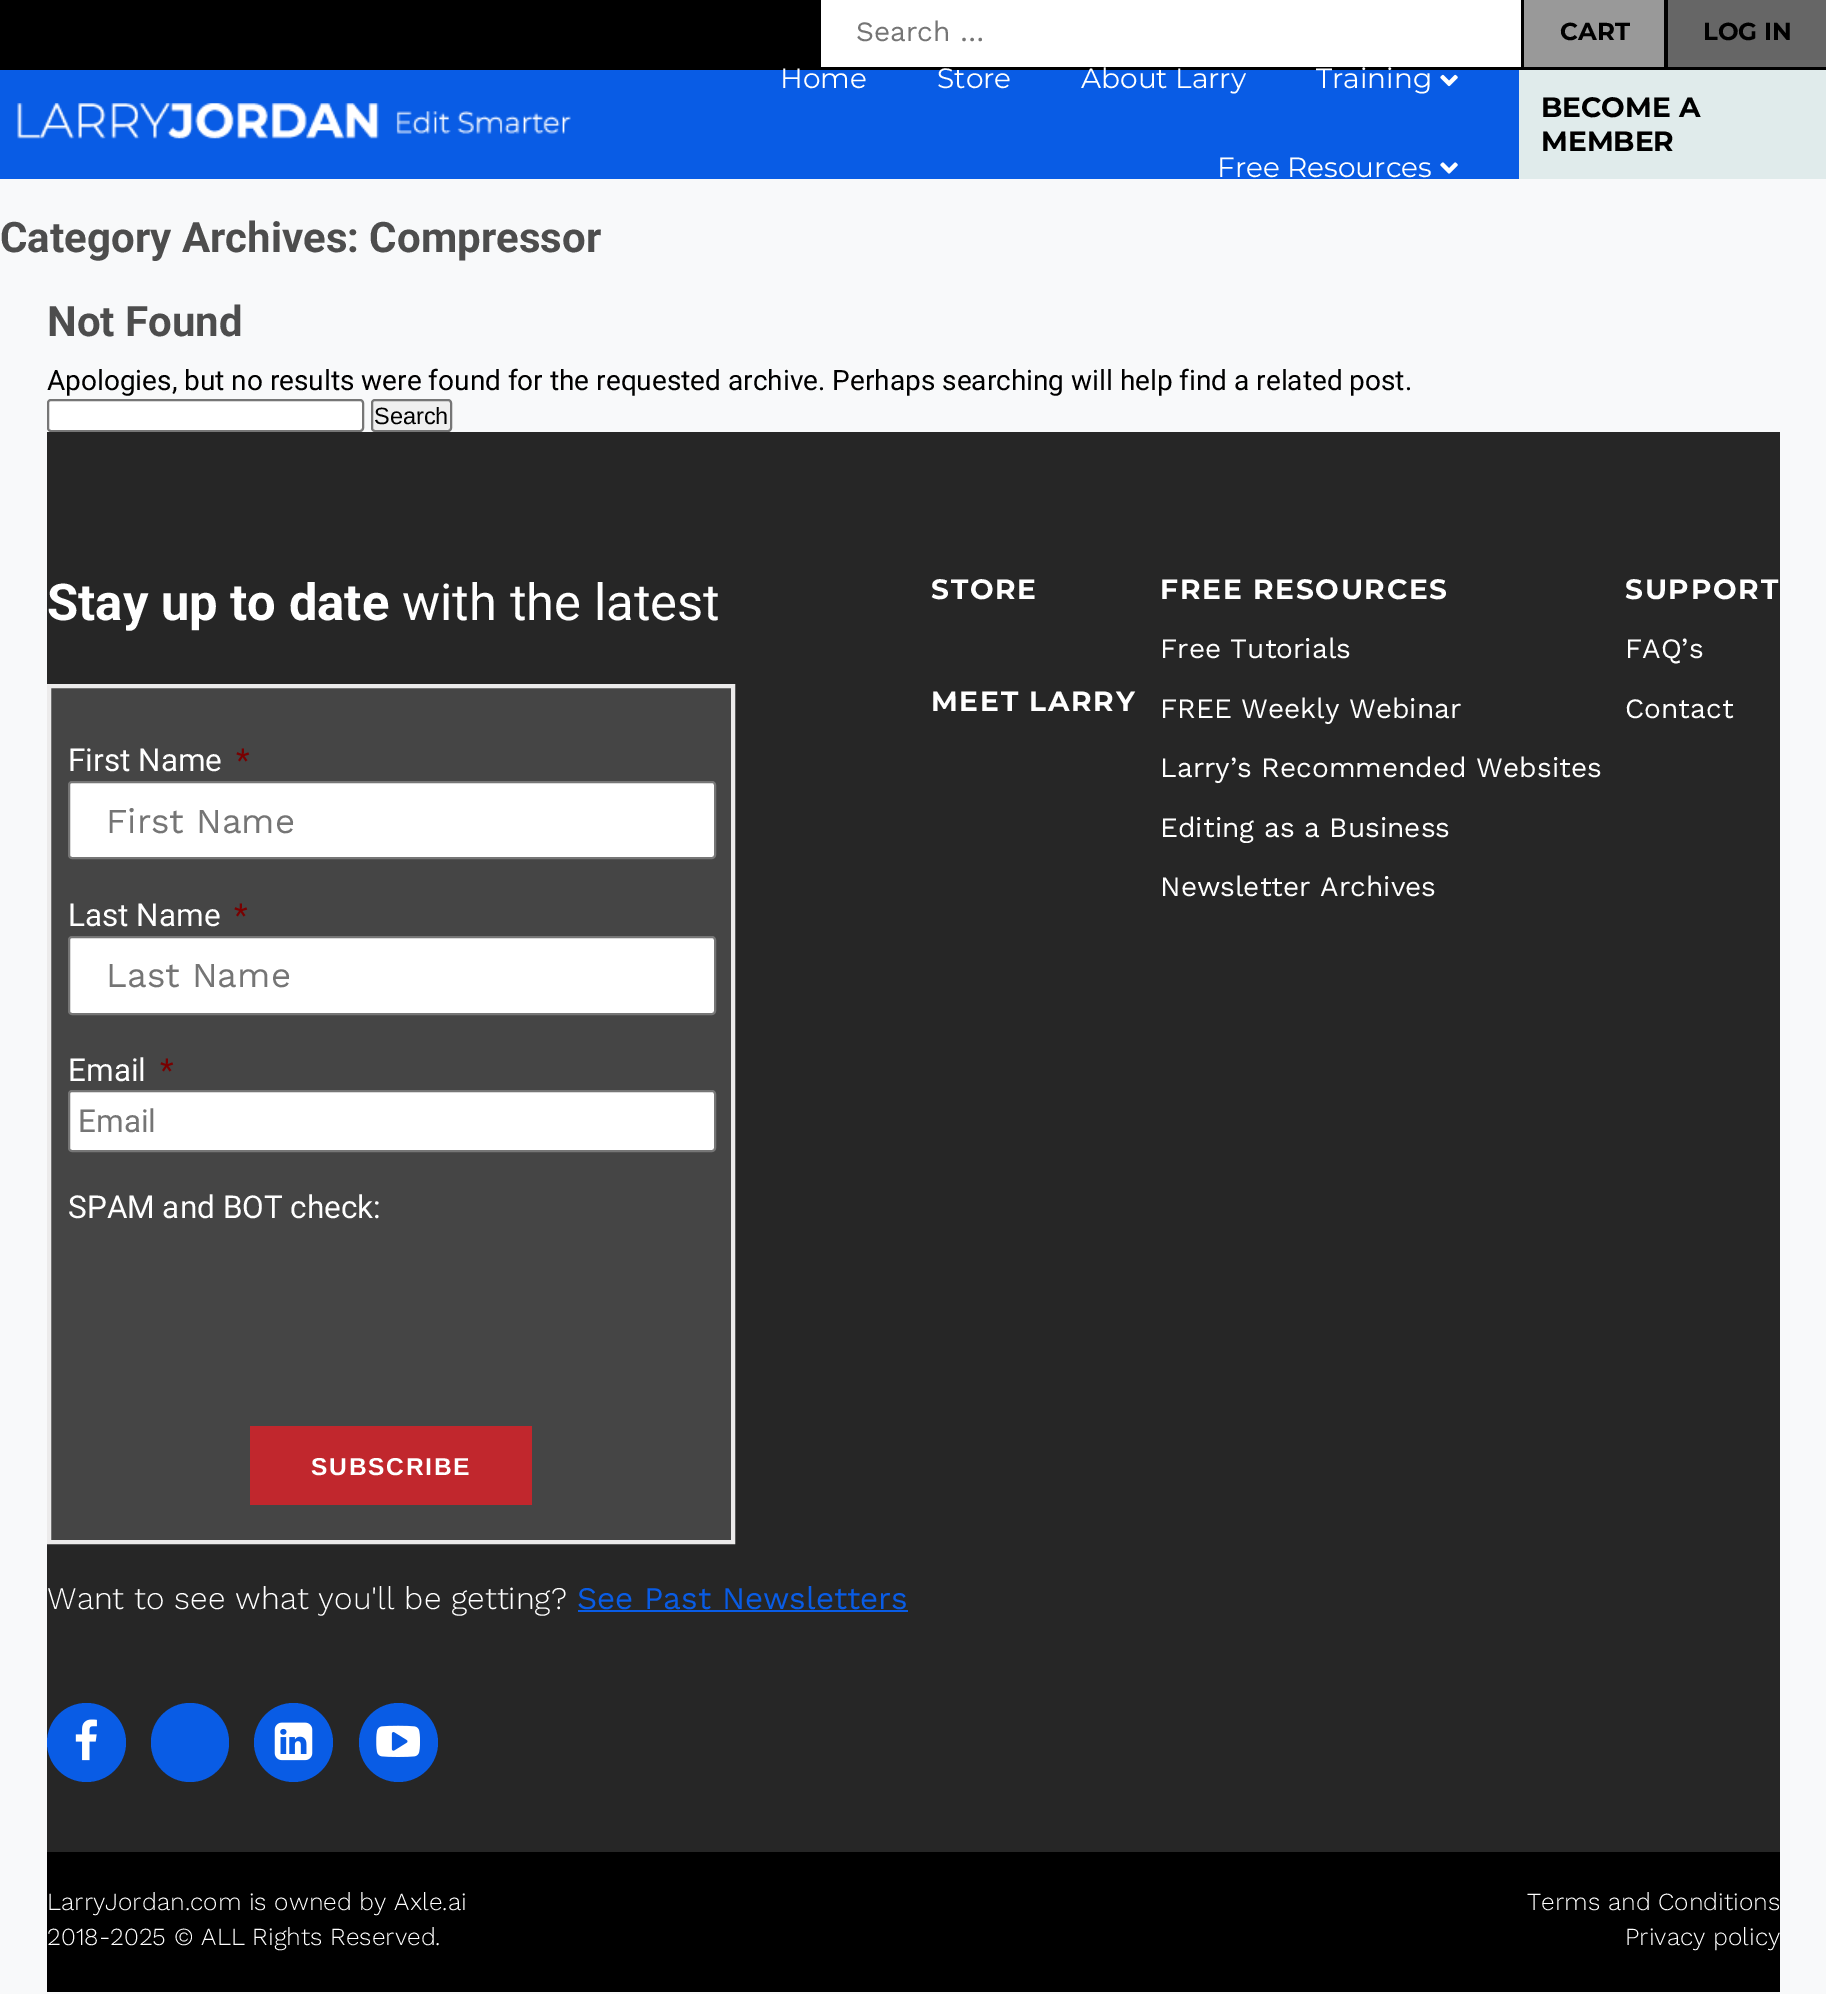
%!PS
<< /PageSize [1826 1994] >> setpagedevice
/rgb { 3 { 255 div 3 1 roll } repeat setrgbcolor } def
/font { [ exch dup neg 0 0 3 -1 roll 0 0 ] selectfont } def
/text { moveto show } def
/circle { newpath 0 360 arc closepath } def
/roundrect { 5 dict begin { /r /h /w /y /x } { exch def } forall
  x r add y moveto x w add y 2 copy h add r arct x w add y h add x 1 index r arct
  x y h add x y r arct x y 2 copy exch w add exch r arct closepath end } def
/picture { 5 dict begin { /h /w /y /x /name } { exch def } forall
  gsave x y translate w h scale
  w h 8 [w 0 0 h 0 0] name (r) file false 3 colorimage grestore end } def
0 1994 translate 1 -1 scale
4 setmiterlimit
248 249 250 rgb
0 0 1826 1994 rectfill
0 0 0 rgb
0 0 1826 70 rectfill
255 255 255 rgb
821 0 700 67 rectfill
153 153 153 rgb
1524 0 140 67 rectfill
102 102 102 rgb
1668 0 158 67 rectfill
9 92 229 rgb
0 70 1519 109 rectfill
(img_01.rgb) 17 103 554 36 picture
(img_02.rgb) 1440 74 18 13 picture
(img_03.rgb) 1440 162 18 12 picture
224 235 235 rgb
1519 70 307 109 rectfill
255 255 255 rgb
48 400 315 31 3 roundrect gsave fill grestore
118 118 118 rgb
2 setlinewidth
stroke
239 239 239 rgb
372 400 79 31 3 roundrect gsave fill grestore
118 118 118 rgb
stroke
38 38 38 rgb
47 432 1733 1420 rectfill
69 69 69 rgb
49 686 moveto 684 0 rlineto 0 856 rlineto -684 0 rlineto closepath gsave fill grestore
236 235 235 rgb
4 setlinewidth
stroke
255 255 255 rgb
69 782 646 76 3 roundrect gsave fill grestore
118 118 118 rgb
2 setlinewidth
stroke
255 255 255 rgb
69 937 646 77 3 roundrect gsave fill grestore
118 118 118 rgb
stroke
255 255 255 rgb
69 1091 646 60 3 roundrect gsave fill grestore
118 118 118 rgb
stroke
193 39 45 rgb
250 1426 282 79 rectfill
9 92 229 rgb
578 1610 330 2 rectfill
86.5 1742.5 39.5 circle fill
(img_04.rgb) 75 1719 22 42 picture
151 1703 78 79 39 roundrect fill
293.5 1742.5 39.5 circle fill
(img_05.rgb) 274 1722 39 39 picture
398.5 1742.5 39.5 circle fill
(img_06.rgb) 376 1725 44 32 picture
0 0 0 rgb
47 1852 1733 140 rectfill
/WorkSans-Regular 28 font
117 117 117 rgb
(Search …) 856 41 text
/Montserrat-Bold 24.5 font
0 0 0 rgb
(CART) 1560 40 text
(LOG IN) 1703 40 text
/Montserrat-Regular 28 font
255 255 255 rgb
(Home) 780 88 text
(Store) 937 88 text
(About Larry) 1081 88 text
(Training) 1316 88 text
(Free Resources) 1217 177 text
/Montserrat-Bold 28 font
0 0 0 rgb
(BECOME A) 1541 117 text
(MEMBER) 1541 151 text
/Roboto-Bold 42 font
77 77 77 rgb
(Category Archives: Compressor) 0 252 text
(Not Found) 47 336 text
/Roboto-Regular 28 font
0 0 0 rgb
(Apologies, but no results were found for the requested archive. Perhaps searching will help find a related post.) 47 390 text
/LiberationSans-Regular 23.5 font
(Search) 374 424 text
/Roboto-Bold 50.75 font
255 255 255 rgb
(Stay up to date) 47 620 text
/Roboto-Regular 50.75 font
(with the latest) 402 620 text
/Roboto-Regular 31.5 font
(First Name) 68 771 text
121 0 0 rgb
(*) 236 771 text
/WorkSans-Regular 35 font
117 117 117 rgb
(First Name) 106 833 text
/Roboto-Regular 31.5 font
255 255 255 rgb
(Last Name) 68 926 text
121 0 0 rgb
(*) 234 926 text
/WorkSans-Regular 35 font
117 117 117 rgb
(Last Name) 106 987 text
/Roboto-Regular 31.5 font
255 255 255 rgb
(Email) 68 1081 text
121 0 0 rgb
(*) 160 1081 text
117 117 117 rgb
(Email) 78 1132 text
255 255 255 rgb
(SPAM and BOT check:) 68 1218 text
/LiberationSans-Bold 24.5 font
311 1475 moveto 1.75 0 (SUBSCRIBE) ashow
/WorkSans-Light 31.5 font
(Want to see what you'll be getting?) 47 1609 text
/WorkSans-Regular 31.5 font
9 92 229 rgb
(See Past Newsletters) 577 1609 text
/Montserrat-Bold 28 font
255 255 255 rgb
931 599 moveto 1.75 0 (STORE) ashow
931 711 moveto 1.75 0 (MEET LARRY) ashow
1160 599 moveto 1.75 0 (FREE RESOURCES) ashow
/WorkSans-Regular 28 font
(Free Tutorials) 1160 658 text
(FREE Weekly Webinar) 1160 718 text
(Larry’s Recommended Websites) 1160 777 text
(Editing as a Business) 1160 837 text
(Newsletter Archives) 1160 896 text
/Montserrat-Bold 28 font
1625 599 moveto 1.75 0 (SUPPORT) ashow
/WorkSans-Regular 28 font
(FAQ’s) 1625 658 text
(Contact) 1625 718 text
/WorkSans-Light 24.5 font
(LarryJordan.com is owned by Axle.ai) 47 1910 text
(2018-2025 © ALL Rights Reserved.) 47 1945 text
(Terms and Conditions) 1527 1910 text
(Privacy policy) 1625 1945 text
showpage
